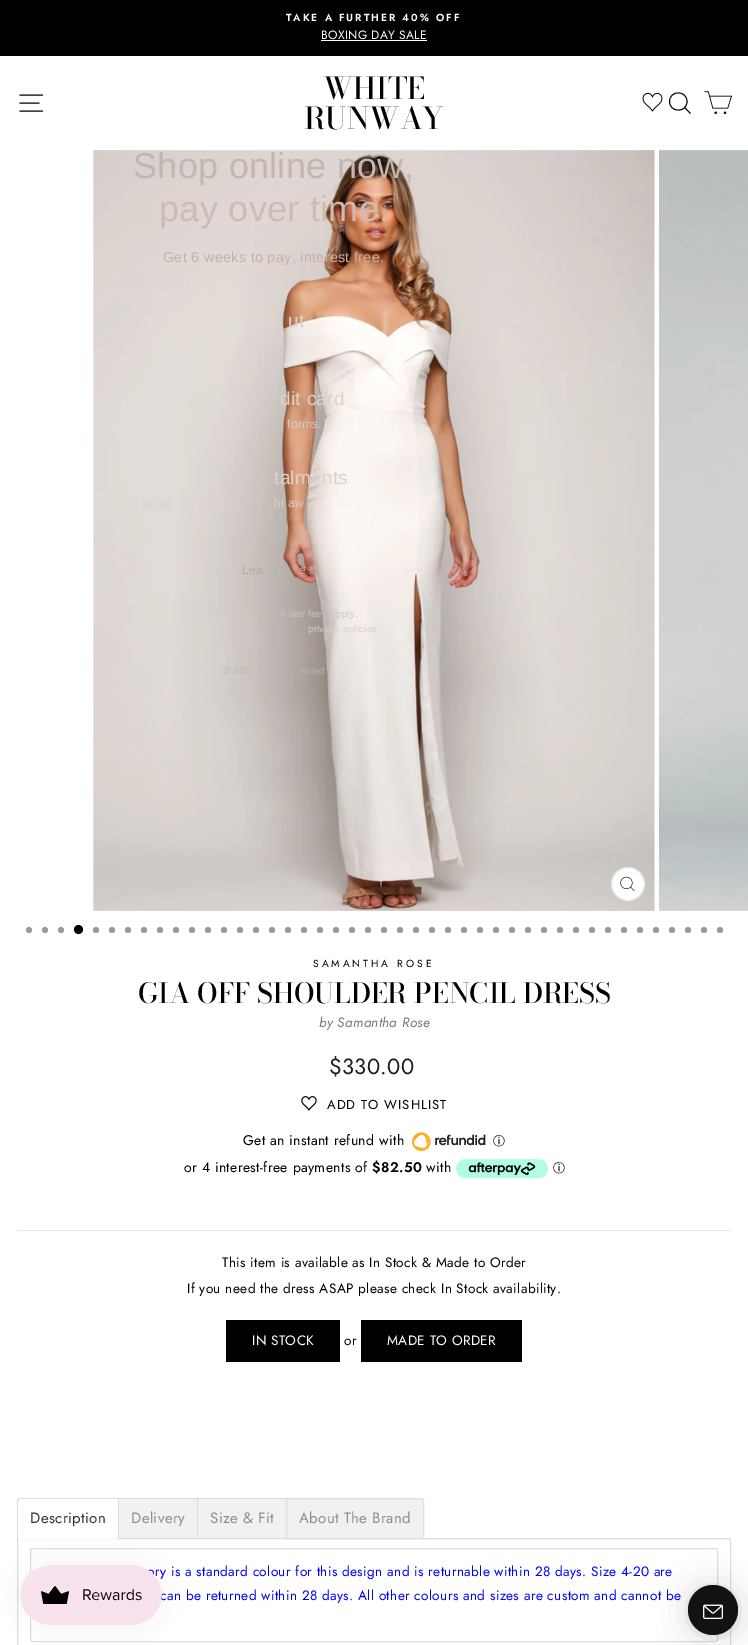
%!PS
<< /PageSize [748 1645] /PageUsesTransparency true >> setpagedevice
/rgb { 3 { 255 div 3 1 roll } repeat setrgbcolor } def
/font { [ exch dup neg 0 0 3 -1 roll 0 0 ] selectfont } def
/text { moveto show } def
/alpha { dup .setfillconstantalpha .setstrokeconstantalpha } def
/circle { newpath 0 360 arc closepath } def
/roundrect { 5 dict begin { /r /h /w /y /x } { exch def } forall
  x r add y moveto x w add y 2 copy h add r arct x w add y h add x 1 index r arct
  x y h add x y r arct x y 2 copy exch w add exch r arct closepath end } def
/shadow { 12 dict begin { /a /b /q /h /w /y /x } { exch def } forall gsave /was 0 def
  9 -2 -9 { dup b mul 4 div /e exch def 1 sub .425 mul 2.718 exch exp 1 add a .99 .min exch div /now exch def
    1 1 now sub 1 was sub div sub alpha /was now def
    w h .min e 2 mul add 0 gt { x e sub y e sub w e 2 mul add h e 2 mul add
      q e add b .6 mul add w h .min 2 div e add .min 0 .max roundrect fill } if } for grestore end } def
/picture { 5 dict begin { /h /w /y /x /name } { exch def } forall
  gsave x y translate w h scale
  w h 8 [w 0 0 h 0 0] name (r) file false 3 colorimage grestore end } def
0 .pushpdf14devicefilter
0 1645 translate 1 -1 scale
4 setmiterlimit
255 255 255 rgb
0 0 748 1645 rectfill
0 0 0 rgb
0 0 748 56 rectfill
255 255 255 rgb
321 40 106 1 rectfill
0 0 0 rgb
0.9 setlinewidth
19.5 95 moveto 23.5 0 rlineto 19.5 103 moveto 20 0 rlineto 19.5 111 moveto 23.5 0 rlineto stroke
(img_01.rgb) 642 92 21 20 picture
687 101.5 moveto 0 11.5 -17.5 11.5 -17.5 0 rcurveto 0 -11.5 17.5 -11.5 17.5 0 rcurveto closepath 690.5 113.5 moveto -6 -6 rlineto stroke
(img_02.rgb) 704 91 28 24 picture
(img_03.rgb) 93 150 562 761 picture
255 255 255 rgb
628 884 16.5 circle gsave fill grestore
232 232 225 rgb
1 setlinewidth
stroke
(img_04.rgb) 620 876 15 15 picture
(img_05.rgb) 659 150 89 761 picture
153 153 153 rgb
29 930 3 circle fill
45 930 3 circle fill
61 930 3 circle fill
0 0 0 rgb
78.5 929.5 4.5 circle fill
153 153 153 rgb
96 930 3 circle fill
112 930 3 circle fill
128 930 3 circle fill
144 930 3 circle fill
160 930 3 circle fill
176 930 3 circle fill
192 930 3 circle fill
208 930 3 circle fill
224 930 3 circle fill
240 930 3 circle fill
256 930 3 circle fill
272 930 3 circle fill
288 930 3 circle fill
304 930 3 circle fill
320 930 3 circle fill
336 930 3 circle fill
352 930 3 circle fill
368 930 3 circle fill
384 930 3 circle fill
400 930 3 circle fill
416 930 3 circle fill
432 930 3 circle fill
448 930 3 circle fill
464 930 3 circle fill
480 930 3 circle fill
496 930 3 circle fill
512 930 3 circle fill
528 930 3 circle fill
544 930 3 circle fill
560 930 3 circle fill
576 930 3 circle fill
592 930 3 circle fill
608 930 3 circle fill
624 930 3 circle fill
640 930 3 circle fill
656 930 3 circle fill
672 930 3 circle fill
688 930 3 circle fill
704 930 3 circle fill
720 930 3 circle fill
(img_06.rgb) 456 1159 92 20 picture
(img_07.rgb) 301 1096 16 15 picture
(img_08.rgb) 412 1132 74 19 picture
232 232 225 rgb
17 1230 714 1 rectfill
0 0 0 rgb
226 1320 114 42 rectfill
361 1320 161 42 rectfill
221 221 221 rgb
17.5 1538.5 moveto 710.5 0 rlineto 1.5 0 2.5 1 2.5 2.5 rcurveto 0 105 rlineto 0 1.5 -1 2.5 -2.5 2.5 rcurveto -708 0 rlineto -1.5 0 -2.5 -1 -2.5 -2.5 rcurveto closepath stroke
255 255 255 rgb
20 1499 moveto 98 0 rlineto 0 40 rlineto -100 0 rlineto 0 -38 rlineto 0 -1 1 -2 2 -2 rcurveto closepath fill
221 221 221 rgb
20 1498 moveto 99 0 rlineto 0 41 rlineto -102 0 rlineto 0 -38 rlineto 0 -2 1 -3 3 -3 rcurveto closepath 20 1499 moveto 98 0 rlineto 0 40 rlineto -100 0 rlineto 0 -38 rlineto 0 -1 1 -2 2 -2 rcurveto closepath eofill
241 241 241 rgb
119 1499 78 39 rectfill
221 221 221 rgb
119 1498 167 1 rectfill
241 241 241 rgb
198 1499 88 39 rectfill
221 221 221 rgb
197 1498 1 41 rectfill
241 241 241 rgb
286.5 1498.5 moveto 134.5 0 rlineto 1.5 0 2.5 1 2.5 2.5 rcurveto 0 37.5 rlineto -137 0 rlineto closepath gsave fill grestore
221 221 221 rgb
stroke
30.5 1548.5 moveto 684.5 0 rlineto 1.5 0 2.5 1 2.5 2.5 rcurveto 0 88 rlineto 0 1.5 -1 2.5 -2.5 2.5 rcurveto -682 0 rlineto -1.5 0 -2.5 -1 -2.5 -2.5 rcurveto closepath stroke
0 0 0 rgb
20 1565 142 60 30 12.5 0.05 shadow
688 1587 50 50 25 16 0.16 shadow
688 1586 50 50 25 3 0.06 shadow
18 18 18 rgb
713 1610 25 circle fill
(img_10.rgb) 703 1604 20 15 picture
/Jost-SemiBold 10.25 font
255 255 255 rgb
286 21 moveto 2 0 (TAKE A FURTHER 40% OFF) ashow
/Jost-Regular 12 font
321 39 moveto 0.35 0 (BOXING DAY SALE) ashow
/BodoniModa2-Medium 30 font
0 0 0 rgb
(WHITE) 323 99 text
(RUNWAY) 304 129 text
/LiberationSans-Regular 36 font
194 182 177 rgb
133 178 moveto 0.3 0 (Shop online now,) ashow
208 187 178 rgb
159 221 moveto 0.3 0 (pay over time.) ashow
/LiberationSans-Regular 14.4 font
199 177 167 rgb
163 262 moveto 0.3 0 (Get 6 weeks to pay, interest free.) ashow
/LiberationSans-Regular 19 font
221 209 203 rgb
288 327 moveto 0.3 0 (ut) ashow
280 405 moveto 0.3 0 (dit card) ashow
/LiberationSans-Regular 12 font
217 203 195 rgb
287 428 moveto 0.3 0 (forms.) ashow
/LiberationSans-Regular 19 font
221 209 203 rgb
274 484 moveto 0.3 0 (talments) ashow
/LiberationSans-Regular 12 font
217 203 195 rgb
142 507 moveto 0.3 0 (oy yo) ashow
274 507 moveto 0.3 0 (ht aw) ashow
318 507 moveto 0.3 0 (.) ashow
190 166 159 rgb
242 574 moveto 0.3 0 (Lea) ashow
299 574 moveto 0.3 0 (e) ashow
/LiberationSans-Regular 9.5 font
203 195 191 rgb
280 617 moveto 0.3 0 (d late fee) ashow
336 617 moveto 0.3 0 (pply.) ashow
214 207 202 rgb
308 632 moveto 0.3 0 (privacy policies) ashow
187 179 174 rgb
223 674 moveto 0.3 0 (© 202) ashow
300 674 moveto 0.3 0 (mited) ashow
/Jost-Regular 14 font
0 0 0 rgb
184 1172 moveto 0.35 0 (or 4 interest-free payments of) ashow
/Jost-SemiBold 14 font
372 1172 moveto 0.35 0 ($82.50) ashow
/Jost-Regular 14 font
426 1172 moveto 0.35 0 (with) ashow
/WenQuanYiZenHei-Medium 12 font
(ⓘ) 553 1172 text
/Jost-Regular 10.25 font
313 967 moveto 3 0 (SAMANTHA ROSE) ashow
/BodoniModa-Medium 27.75 font
(GIA OFF SHOULDER PENCIL DRESS) 138 1003 text
/Jost-Italic 13.6 font
119 119 119 rgb
319 1027 moveto 0.35 0 (by Samantha Rose) ashow
/Jost-Regular 22 font
28 29 29 rgb
329 1074 moveto 0.35 0 ($330.00) ashow
/Jost-Regular 13 font
0 0 0 rgb
327 1109 moveto 1 0 (ADD TO WISHLIST) ashow
/Jost-Regular 14 font
243 1145 moveto 0.35 0 (Get an instant refund with) ashow
/WenQuanYiZenHei-Medium 12 font
493 1145 moveto 0.35 0 (ⓘ) ashow
/Jost-Regular 13.6 font
222 1267 moveto 0.35 0 (This item is available as In Stock & Made to Order) ashow
187 1293 moveto 0.35 0 (If you need the dress ASAP please check In Stock availability.) ashow
255 255 255 rgb
252 1345 moveto 0.35 0 (IN STOCK) ashow
0 0 0 rgb
344 1345 moveto 0.35 0 (or) ashow
255 255 255 rgb
387 1345 moveto 0.35 0 (MADE TO ORDER) ashow
/Jost-Regular 15 font
51 51 51 rgb
30 1523 moveto 0.35 0 (Description) ashow
141 141 141 rgb
131 1523 moveto 0.35 0 (Delivery) ashow
210 1523 moveto 0.35 0 (Size & Fit) ashow
299 1523 moveto 0.35 0 (About The Brand) ashow
/Jost-Regular 13.6 font
0 0 255 rgb
155 1576 moveto 0.35 0 (ry is a standard colour for this design and is returnable within 28 days. Size 4-20 are) ashow
160 1600 moveto 0.35 0 (can be returned within 28 days. All other colours and sizes are custom and cannot be) ashow
(img_09.rgb) 20 1565 142 60 picture
.poppdf14devicefilter showpage
